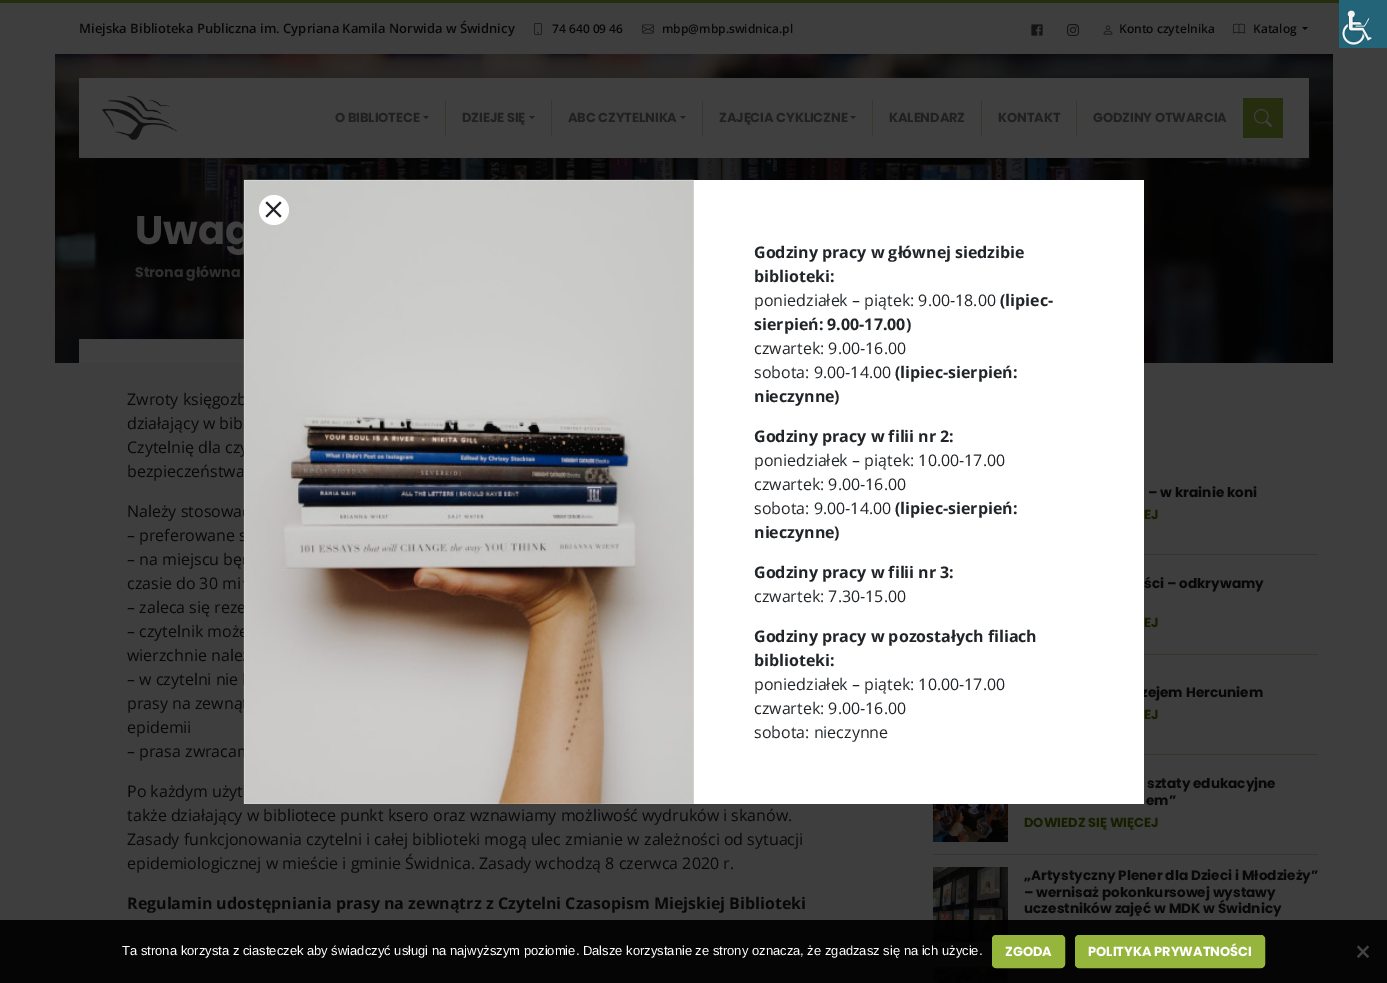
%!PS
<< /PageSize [1387 983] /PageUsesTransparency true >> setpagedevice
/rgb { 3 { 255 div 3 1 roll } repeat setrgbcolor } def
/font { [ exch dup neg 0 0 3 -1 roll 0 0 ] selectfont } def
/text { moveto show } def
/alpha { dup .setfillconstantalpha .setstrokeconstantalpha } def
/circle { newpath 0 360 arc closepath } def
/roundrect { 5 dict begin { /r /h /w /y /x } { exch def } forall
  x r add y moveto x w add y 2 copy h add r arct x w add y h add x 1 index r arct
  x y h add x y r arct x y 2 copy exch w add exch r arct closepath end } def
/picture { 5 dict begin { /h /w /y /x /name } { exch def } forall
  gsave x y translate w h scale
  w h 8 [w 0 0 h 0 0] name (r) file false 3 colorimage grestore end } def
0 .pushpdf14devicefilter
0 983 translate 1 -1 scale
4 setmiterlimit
62 62 62 rgb
0 0 1387 983 rectfill
37 45 15 rgb
0 0 1339 3 rectfill
(img_01.rgb) 534 23 8 12 picture
(img_02.rgb) 642 24 12 10 picture
(img_03.rgb) 1031 24 12 12 picture
(img_04.rgb) 1067 24 12 12 picture
(img_05.rgb) 1103 25 10 10 picture
(img_06.rgb) 1233 23 12 11 picture
8 8 8 rgb
1302 27 moveto 6 0 rlineto -3 3 rlineto closepath fill
(img_07.rgb) 1339 0 48 48 picture
(img_10.rgb) 55 54 1278 309 picture
64 64 64 rgb
79 78 1230 80 rectfill
(img_08.rgb) 101 96 76 44 picture
53 56 44 rgb
445 100 1 36 rectfill
32 32 32 rgb
423 116 moveto 6 0 rlineto -3 3 rlineto closepath fill
53 56 44 rgb
551 100 1 36 rectfill
32 32 32 rgb
529 116 moveto 6 0 rlineto -3 3 rlineto closepath fill
53 56 44 rgb
702 100 1 36 rectfill
32 32 32 rgb
680 116 moveto 6 0 rlineto -3 3 rlineto closepath fill
53 56 44 rgb
872 100 1 36 rectfill
32 32 32 rgb
850 116 moveto 6 0 rlineto -3 3 rlineto closepath fill
53 56 44 rgb
981 100 1 36 rectfill
1076 100 1 36 rectfill
37 45 15 rgb
1243 98 40 40 rectfill
(img_09.rgb) 1254 109 18 18 picture
64 64 64 rgb
79 339 810 24 rectfill
52 55 44 rgb
1144 554 174 1 rectfill
1144 654 174 1 rectfill
1144 754 174 1 rectfill
933 854 385 1 rectfill
(img_11.rgb) 933 804 75 38 picture
933 954 385 1 rectfill
(img_12.rgb) 933 867 75 75 picture
(img_13.rgb) 933 967 75 16 picture
0.92 alpha
0 0 0 rgb
0 920 1387 63 rectfill
1 alpha
149 181 61 rgb
992.5 935.5 72 32 3.5 roundrect gsave fill grestore
stroke
1075.5 935.5 189 32 3.5 roundrect gsave fill grestore
stroke
66 66 66 rgb
1367.5 945.5 moveto 1.5 1.5 rlineto -10.5 11 rlineto -1.5 -1.5 rlineto closepath fill
1357 947 moveto 1.5 -1.5 rlineto 10.5 11 rlineto -1.5 1.5 rlineto closepath fill
/OpenSans-SemiBold 13 font
8 8 8 rgb
(Miejska Biblioteka Publiczna im. Cypriana Kamila Norwida w Świdnicy) 79 33 text
/OpenSans-SemiBold 12 font
(74 640 09 46) 552 33 text
(mbp@mbp.swidnica.pl) 662 33 text
(Konto czytelnika) 1119 33 text
(Katalog) 1253 33 text
/Poppins-Bold 13 font
32 32 32 rgb
335 122 moveto -0.1 0 (O BIBLIOTECE) ashow
462 122 moveto -0.1 0 (DZIEJE SIĘ) ashow
568 122 moveto -0.1 0 (ABC CZYTELNIKA) ashow
719 122 moveto -0.1 0 (ZAJĘCIA CYKLICZNE) ashow
889 122 moveto -0.1 0 (KALENDARZ) ashow
998 122 moveto -0.1 0 (KONTAKT) ashow
1093 122 moveto -0.1 0 (GODZINY OTWARCIA) ashow
/Poppins-Bold 40 font
64 64 64 rgb
(Uwag) 135 244 text
/Poppins-Bold 14 font
47 47 47 rgb
(Strona główna) 135 277 text
/OpenSans-Regular 16 font
8 8 8 rgb
(Zwroty księgozb) 127 405 text
(działający w bib) 127 429 text
(Czytelnię dla czy) 127 453 text
(bezpieczeństwa) 127 477 text
(Należy stosowa) 127 517 text
(– preferowane s) 127 541 text
(– na miejscu bę) 127 565 text
(czasie do 30 mi) 127 589 text
(– zaleca się reze) 127 613 text
(– czytelnik może) 127 637 text
(wierzchnie nale) 127 661 text
(– w czytelni nie) 127 685 text
(prasy na zewną) 127 709 text
(epidemii) 127 733 text
(– prasa zwracan) 127 757 text
(Po każdym użyt) 127 797 text
(także działający w bibliotece punkt ksero oraz wznawiamy możliwość wydruków i skanów.) 127 821 text
(Zasady funkcjonowania czytelni i całej biblioteki mogą ulec zmianie w zależności od sytuacji) 127 845 text
(epidemiologicznej w mieście i gminie Świdnica. Zasady wchodzą 8 czerwca 2020 r.) 127 869 text
/OpenSans-Bold 16 font
(Regulamin udostępniania prasy na zewnątrz z Czytelni Czasopism Miejskiej Biblioteki) 127 909 text
/Poppins-Bold 13.6 font
(– w krainie koni) 1148 497 text
/Poppins-Bold 13 font
22 30 0 rgb
(EJ) 1144 519 text
/Poppins-Bold 13.6 font
8 8 8 rgb
(ści – odkrywamy) 1144 588 text
/Poppins-Bold 13 font
22 30 0 rgb
(EJ) 1144 627 text
/Poppins-Bold 13.6 font
8 8 8 rgb
(zejem Hercuniem) 1141 697 text
/Poppins-Bold 13 font
22 30 0 rgb
(EJ) 1144 719 text
/Poppins-Bold 13.6 font
8 8 8 rgb
(sztaty edukacyjne) 1147 788 text
(em”) 1146 805 text
/Poppins-Bold 13 font
22 30 0 rgb
(DOWIEDZ SIĘ WIĘCEJ) 1024 827 text
/Poppins-Bold 13.6 font
8 8 8 rgb
(„Artystyczny Plener dla Dzieci i Młodzieży”) 1024 880 text
(– wernisaż pokonkursowej wystawy) 1024 897 text
(uczestników zajęć w MDK w Świdnicy) 1024 913 text
255 255 255 rgb
244 180 900 624 rectfill
(img_14.rgb) 243 179 451 625 picture
274 210 15 circle fill
33 37 41 rgb
265.5 216 moveto 14.5 -14.5 rlineto 1.5 1.5 rlineto -14.5 14.5 rlineto closepath fill
267 201.5 moveto 14.5 14.5 rlineto -1.5 1.5 rlineto -14.5 -14.5 rlineto closepath fill
/OpenSans-Bold 16 font
(Godziny pracy w głównej siedzibie) 754 258 text
(biblioteki:) 754 282 text
/OpenSans-Regular 16 font
(poniedziałek – piątek: 9.00-18.00) 754 306 text
/OpenSans-Bold 16 font
(\(lipiec-) 1000 306 text
(sierpień: 9.00-17.00\)) 754 330 text
/OpenSans-Regular 16 font
(czwartek: 9.00-16.00) 754 354 text
(sobota: 9.00-14.00) 754 378 text
/OpenSans-Bold 16 font
(\(lipiec-sierpień:) 895 378 text
(nieczynne\)) 754 402 text
(Godziny pracy w filii nr 2:) 754 442 text
/OpenSans-Regular 16 font
(poniedziałek – piątek: 10.00-17.00) 754 466 text
(czwartek: 9.00-16.00) 754 490 text
(sobota: 9.00-14.00) 754 514 text
/OpenSans-Bold 16 font
(\(lipiec-sierpień:) 895 514 text
(nieczynne\)) 754 538 text
(Godziny pracy w filii nr 3:) 754 578 text
/OpenSans-Regular 16 font
(czwartek: 7.30-15.00) 754 602 text
/OpenSans-Bold 16 font
(Godziny pracy w pozostałych filiach) 754 642 text
(biblioteki:) 754 666 text
/OpenSans-Regular 16 font
(poniedziałek – piątek: 10.00-17.00) 754 690 text
(czwartek: 9.00-16.00) 754 714 text
(sobota: nieczynne) 754 738 text
/LiberationSans-Regular 13 font
255 255 255 rgb
(Ta strona korzysta z ciasteczek aby świadczyć usługi na najwyższym poziomie. Dalsze korzystanie ze strony oznacza, że zgadzasz się na ich użycie.) 122 955 text
/Poppins-Bold 13 font
(ZGODA) 1005 956 text
(POLITYKA PRYWATNOŚCI) 1088 956 text
.poppdf14devicefilter showpage
